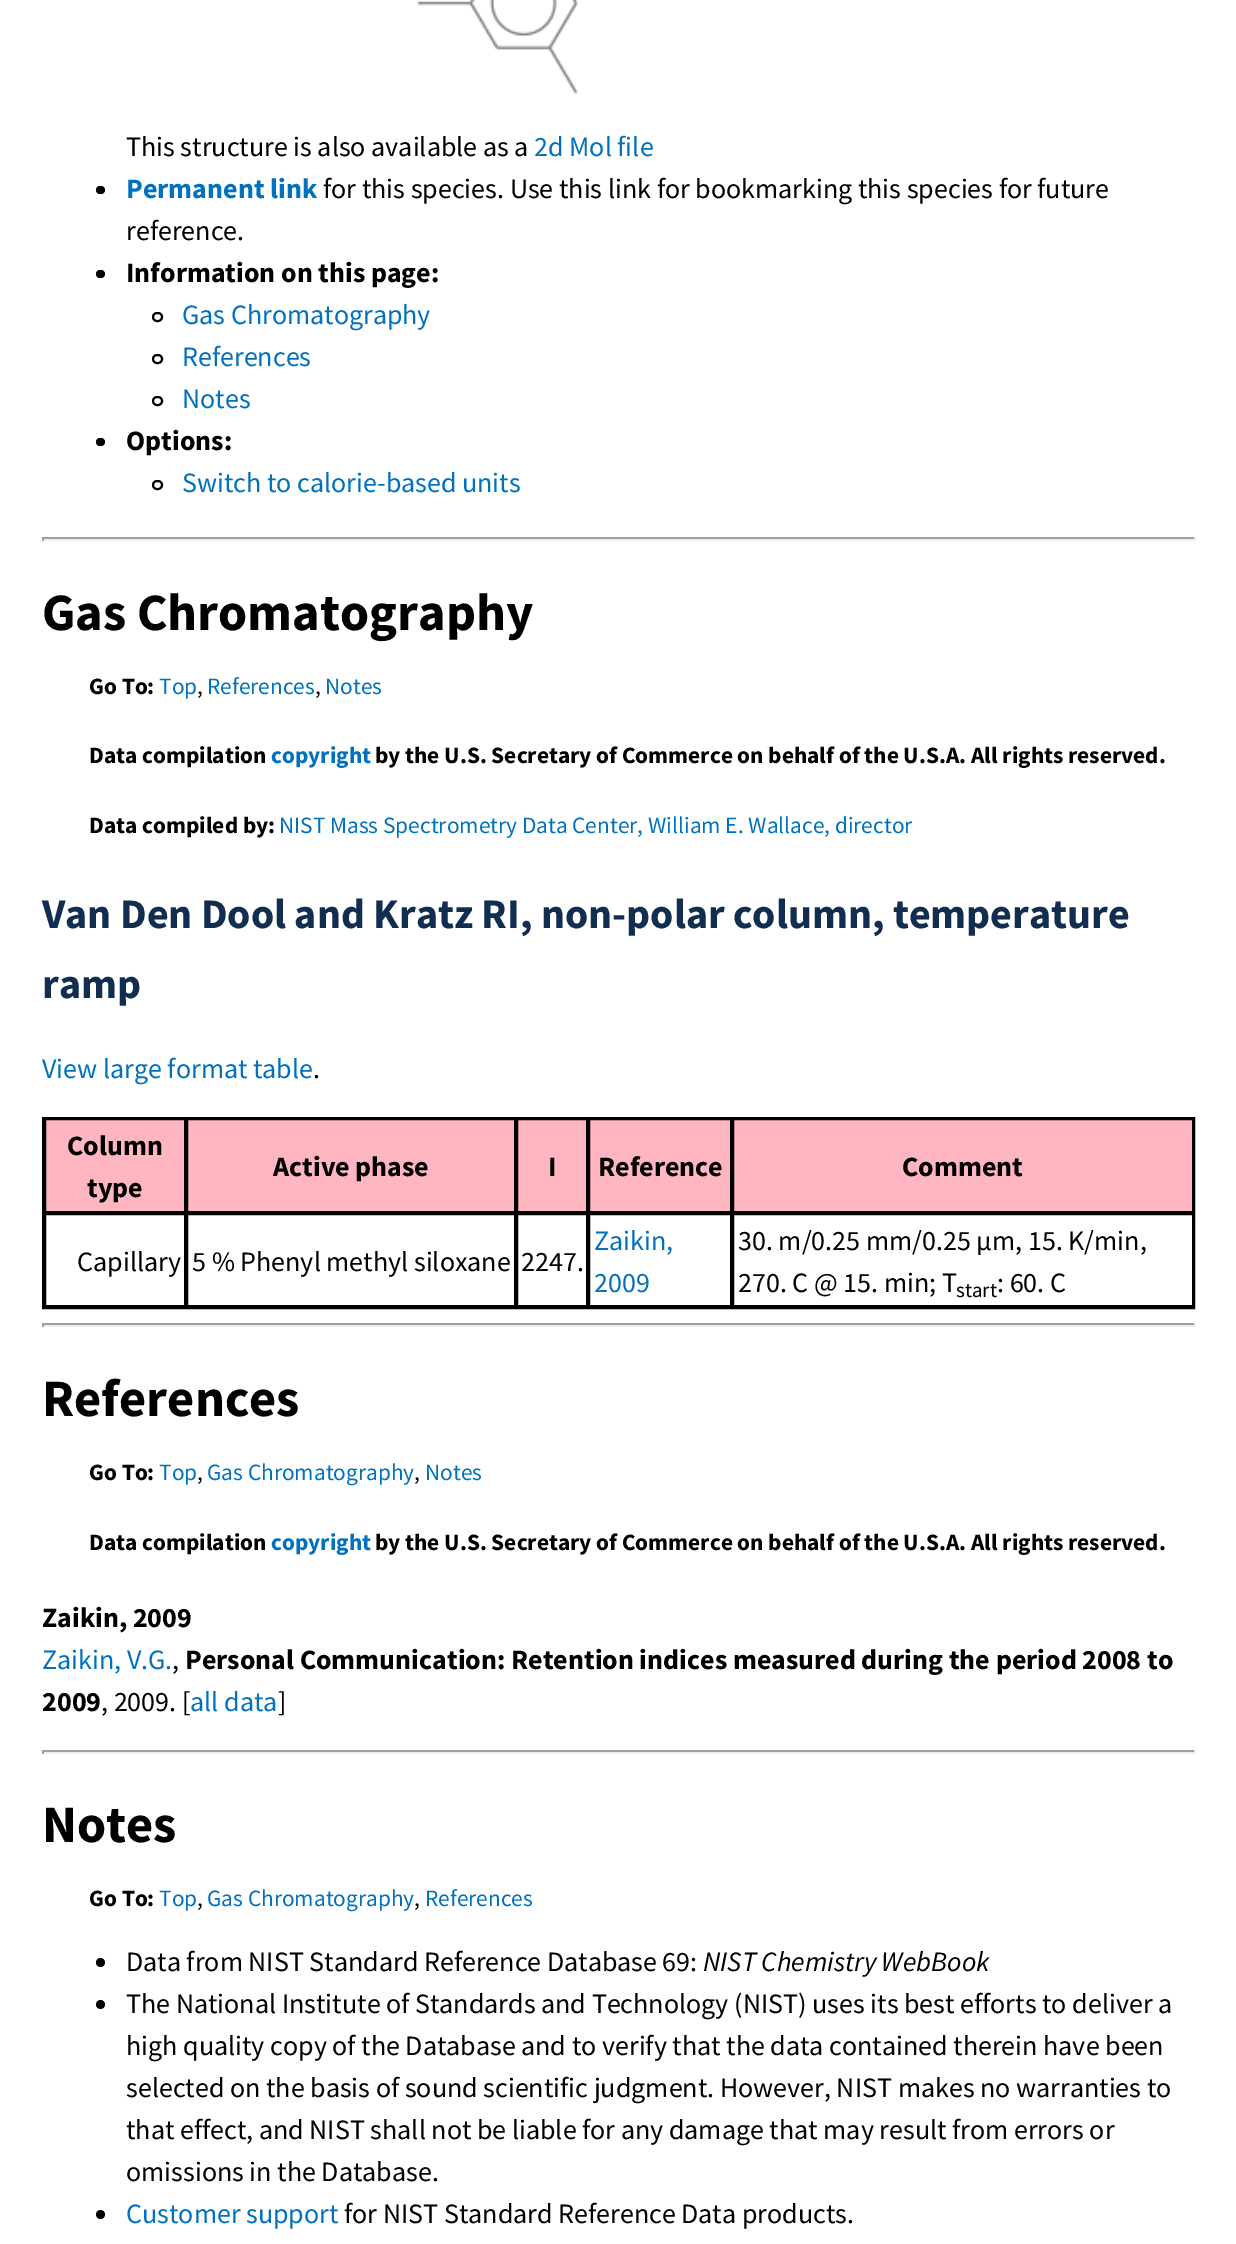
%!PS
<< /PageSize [1236 2244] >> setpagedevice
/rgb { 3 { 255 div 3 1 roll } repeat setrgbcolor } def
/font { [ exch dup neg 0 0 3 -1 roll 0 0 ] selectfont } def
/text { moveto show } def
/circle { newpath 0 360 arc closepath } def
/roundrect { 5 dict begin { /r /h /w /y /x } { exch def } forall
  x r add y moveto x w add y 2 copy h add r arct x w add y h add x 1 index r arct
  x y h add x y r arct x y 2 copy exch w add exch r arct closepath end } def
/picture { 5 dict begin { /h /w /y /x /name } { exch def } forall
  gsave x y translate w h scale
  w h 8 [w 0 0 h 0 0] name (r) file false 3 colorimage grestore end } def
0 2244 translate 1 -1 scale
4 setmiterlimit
255 255 255 rgb
0 0 1236 2244 rectfill
(img_01.rgb) 417 0 161 94 picture
0 0 0 rgb
96 186 9 8 4 roundrect fill
96 270 9 8 4 roundrect fill
2 setlinewidth
153 313 9 8 4 roundrect stroke
153 355 9 8 4 roundrect stroke
153 397 9 8 4 roundrect stroke
96 438 9 8 4 roundrect fill
153 481 9 8 4 roundrect stroke
159 159 159 rgb
42 537 1153 2 rectfill
238 238 238 rgb
1194 537 2 4 rectfill
42 539 1153 2 rectfill
159 159 159 rgb
42 537 2 4 rectfill
0 0 0 rgb
43 1118 1151 190 rectstroke
255 182 193 rgb
45 1119 moveto 140 0 rlineto 0 93 rlineto -140 0 rlineto closepath gsave fill grestore
0 0 0 rgb
stroke
255 182 193 rgb
187 1119 moveto 328 0 rlineto 0 93 rlineto -328 0 rlineto closepath gsave fill grestore
0 0 0 rgb
stroke
255 182 193 rgb
517 1119 moveto 70 0 rlineto 0 93 rlineto -70 0 rlineto closepath gsave fill grestore
0 0 0 rgb
stroke
255 182 193 rgb
589 1119 moveto 142 0 rlineto 0 93 rlineto -142 0 rlineto closepath gsave fill grestore
0 0 0 rgb
stroke
255 182 193 rgb
733 1119 moveto 460 0 rlineto 0 93 rlineto -460 0 rlineto closepath gsave fill grestore
0 0 0 rgb
stroke
45 1214 140 92 rectstroke
187 1214 328 92 rectstroke
517 1214 70 92 rectstroke
589 1214 142 92 rectstroke
733 1214 460 92 rectstroke
159 159 159 rgb
42 1323 1153 2 rectfill
238 238 238 rgb
1194 1323 2 4 rectfill
42 1325 1153 2 rectfill
159 159 159 rgb
42 1323 2 4 rectfill
42 1750 1153 2 rectfill
238 238 238 rgb
1194 1750 2 4 rectfill
42 1752 1153 2 rectfill
159 159 159 rgb
42 1750 2 4 rectfill
0 0 0 rgb
100.5 1962.5 4.5 circle fill
100.5 2004.5 4.5 circle fill
100.5 2214.5 4.5 circle fill
/SourceSansPro-Regular 28 font
(This structure is also available as a) 126 156 text
0 113 188 rgb
(2d Mol file) 534 156 text
/SourceSansPro-Bold 28 font
(Permanent link) 126 198 text
/SourceSansPro-Regular 28 font
0 0 0 rgb
(for this species. Use this link for bookmarking this species for future) 323 198 text
(reference.) 126 240 text
/SourceSansPro-Bold 28 font
(Information on this page:) 126 282 text
/SourceSansPro-Regular 28 font
0 113 188 rgb
(Gas Chromatography) 182 324 text
(References) 182 366 text
(Notes) 182 408 text
/SourceSansPro-Bold 28 font
0 0 0 rgb
(Options:) 126 450 text
/SourceSansPro-Regular 28 font
0 113 188 rgb
(Switch to calorie-based units) 182 492 text
/SourceSansPro-Bold 52.5 font
0 0 0 rgb
(Gas Chromatography) 42 630 text
/SourceSansPro-Bold 23.35 font
(Go To:) 89 694 text
/SourceSansPro-Regular 23.35 font
0 113 188 rgb
(Top) 159 694 text
0 0 0 rgb
(,) 197 694 text
0 113 188 rgb
(References) 207 694 text
0 0 0 rgb
(,) 315 694 text
0 113 188 rgb
(Notes) 325 694 text
/SourceSansPro-Bold 23.35 font
0 0 0 rgb
(Data compilation) 89 763 text
0 113 188 rgb
(copyright) 271 763 text
0 0 0 rgb
(by the U.S. Secretary of Commerce on behalf of the U.S.A. All rights reserved.) 375 763 text
(Data compiled by:) 89 833 text
/SourceSansPro-Regular 23.35 font
0 113 188 rgb
(NIST Mass Spectrometry Data Center, William E. Wallace, director) 279 833 text
/SourceSansPro-Bold 42 font
17 46 81 rgb
(Van Den Dool and Kratz RI, non-polar column, temperature) 42 928 text
(ramp) 42 998 text
/SourceSansPro-Regular 28 font
0 113 188 rgb
(View large format table) 42 1078 text
0 0 0 rgb
(.) 313 1078 text
/SourceSansPro-Bold 28 font
(Column) 67 1155 text
(type) 87 1197 text
(Active phase) 273 1176 text
(I) 548 1176 text
(Reference) 598 1176 text
(Comment) 902 1176 text
/SourceSansPro-Regular 28 font
(Capillary) 77 1271 text
(5 % Phenyl methyl siloxane) 192 1271 text
(2247.) 521 1271 text
0 113 188 rgb
(Zaikin,) 594 1250 text
(2009) 594 1292 text
0 0 0 rgb
(30. m/0.25 mm/0.25 μm, 15. K/min,) 738 1250 text
(270. C @ 15. min; T) 738 1292 text
/SourceSansPro-Regular 21 font
(start) 956 1297 text
/SourceSansPro-Regular 28 font
(: 60. C) 997 1292 text
/SourceSansPro-Bold 52.5 font
(References) 42 1416 text
/SourceSansPro-Bold 23.35 font
(Go To:) 89 1480 text
/SourceSansPro-Regular 23.35 font
0 113 188 rgb
(Top) 159 1480 text
0 0 0 rgb
(,) 197 1480 text
0 113 188 rgb
(Gas Chromatography) 207 1480 text
0 0 0 rgb
(,) 414 1480 text
0 113 188 rgb
(Notes) 425 1480 text
/SourceSansPro-Bold 23.35 font
0 0 0 rgb
(Data compilation) 89 1550 text
0 113 188 rgb
(copyright) 271 1550 text
0 0 0 rgb
(by the U.S. Secretary of Commerce on behalf of the U.S.A. All rights reserved.) 375 1550 text
/SourceSansPro-Bold 28 font
(Zaikin, 2009) 42 1627 text
/SourceSansPro-Regular 28 font
0 113 188 rgb
(Zaikin, V.G.) 42 1669 text
0 0 0 rgb
(,) 172 1669 text
/SourceSansPro-Bold 28 font
(Personal Communication: Retention indices measured during the period 2008 to) 185 1669 text
(2009) 42 1711 text
/SourceSansPro-Regular 28 font
(, 2009. [) 101 1711 text
0 113 188 rgb
(all data) 190 1711 text
0 0 0 rgb
(]) 278 1711 text
/SourceSansPro-Bold 52.5 font
(Notes) 42 1842 text
/SourceSansPro-Bold 23.35 font
(Go To:) 89 1906 text
/SourceSansPro-Regular 23.35 font
0 113 188 rgb
(Top) 159 1906 text
0 0 0 rgb
(,) 197 1906 text
0 113 188 rgb
(Gas Chromatography) 207 1906 text
0 0 0 rgb
(,) 414 1906 text
0 113 188 rgb
(References) 425 1906 text
/SourceSansPro-Regular 28 font
0 0 0 rgb
(Data from NIST Standard Reference Database 69:) 126 1971 text
/SourceSansPro-Italic 28 font
(NIST Chemistry WebBook) 703 1971 text
/SourceSansPro-Regular 28 font
(The National Institute of Standards and Technology \(NIST\) uses its best efforts to deliver a) 126 2013 text
(high quality copy of the Database and to verify that the data contained therein have been) 126 2055 text
(selected on the basis of sound scientific judgment. However, NIST makes no warranties to) 126 2097 text
(that effect, and NIST shall not be liable for any damage that may result from errors or) 126 2139 text
(omissions in the Database.) 126 2181 text
0 113 188 rgb
(Customer support) 126 2223 text
0 0 0 rgb
(for NIST Standard Reference Data products.) 344 2223 text
showpage
